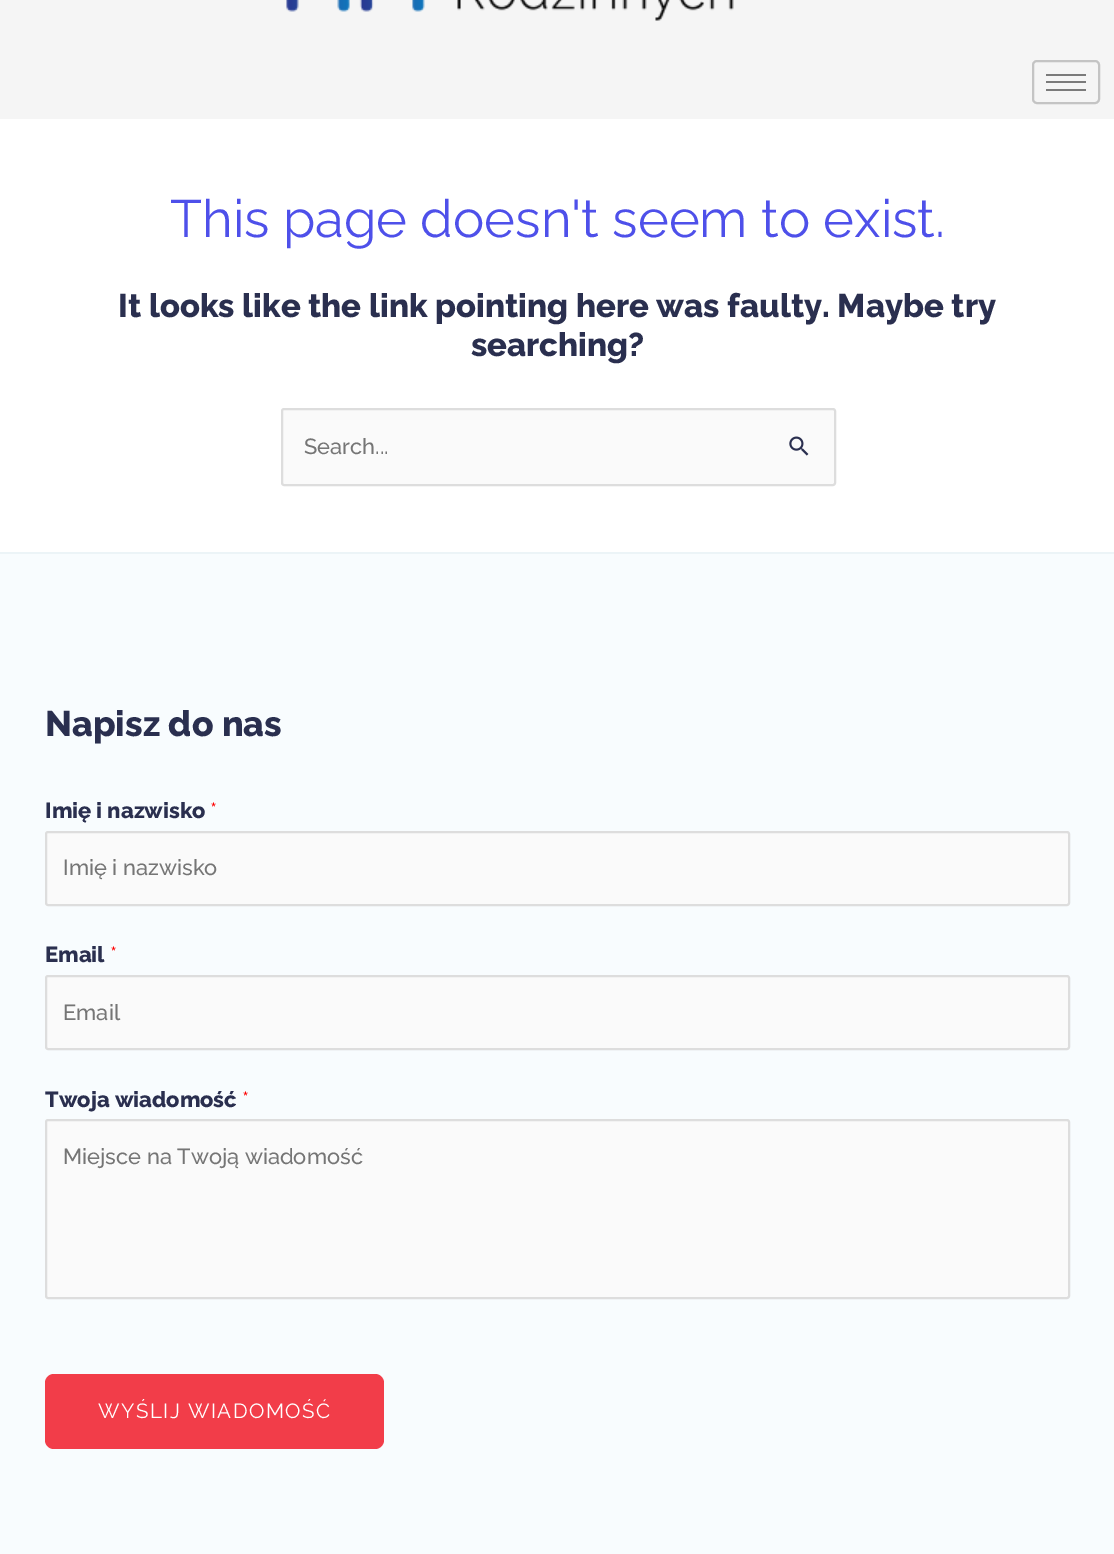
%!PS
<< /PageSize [1114 1554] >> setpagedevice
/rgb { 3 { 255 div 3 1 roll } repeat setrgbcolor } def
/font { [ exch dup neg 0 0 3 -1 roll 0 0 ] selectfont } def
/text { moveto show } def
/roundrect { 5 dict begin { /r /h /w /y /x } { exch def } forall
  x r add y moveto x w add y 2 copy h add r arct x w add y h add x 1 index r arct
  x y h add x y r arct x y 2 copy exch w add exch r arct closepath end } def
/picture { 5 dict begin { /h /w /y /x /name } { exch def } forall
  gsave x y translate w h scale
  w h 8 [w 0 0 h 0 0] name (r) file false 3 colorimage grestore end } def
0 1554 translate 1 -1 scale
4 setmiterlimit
255 255 255 rgb
0 0 1114 1554 rectfill
245 245 245 rgb
0 0 1114 119 rectfill
(img_01.rgb) 286 0 448 21 picture
196 196 196 rgb
2 setlinewidth
1033 61 66 42 4 roundrect stroke
123 123 123 rgb
1046 74 40 2 rectfill
1046 81 40 2 rectfill
1046 89 40 2 rectfill
250 250 250 rgb
282 409 553 76 2 roundrect gsave fill grestore
221 221 221 rgb
stroke
(img_02.rgb) 789 436 20 20 picture
248 252 254 rgb
0 554 1114 1000 rectfill
236 244 247 rgb
0 552 1114 2 rectfill
250 250 250 rgb
46 832 1023 73 2 roundrect gsave fill grestore
221 221 221 rgb
stroke
250 250 250 rgb
46 976 1023 73 2 roundrect gsave fill grestore
221 221 221 rgb
stroke
250 250 250 rgb
46 1120 1023 178 2 roundrect gsave fill grestore
221 221 221 rgb
stroke
242 61 73 rgb
45 1374 339 75 9 roundrect fill
/Raleway-Regular 52.5 font
78 80 234 rgb
(This page doesn't seem to exist.) 170 237 text
/Raleway-ExtraBold 32.8 font
42 47 79 rgb
(It looks like the link pointing here was faulty. Maybe try) 118 317 text
(searching?) 471 356 text
/Raleway-Medium 21.9 font
117 117 117 rgb
(Search...) 304 454 text
/Raleway-ExtraBold 35.5 font
42 47 79 rgb
(Napisz do nas) 45 736 text
/Raleway-ExtraBold 21.9 font
(Imię i nazwisko) 45 818 text
/Raleway-Regular 21.9 font
255 0 0 rgb
(*) 210 818 text
/Raleway-Medium 21.9 font
117 117 117 rgb
(Imię i nazwisko) 63 875 text
/Raleway-ExtraBold 21.9 font
42 47 79 rgb
(Email) 45 962 text
/Raleway-Regular 21.9 font
255 0 0 rgb
(*) 110 962 text
/Raleway-Medium 21.9 font
117 117 117 rgb
(Email) 63 1020 text
/Raleway-ExtraBold 21.9 font
42 47 79 rgb
(Twoja wiadomość) 45 1107 text
/Raleway-Regular 21.9 font
255 0 0 rgb
(*) 242 1107 text
/Raleway-Medium 21.9 font
117 117 117 rgb
(Miejsce na Twoją wiadomość) 63 1164 text
/Raleway-Regular 20.5 font
255 255 255 rgb
98 1418 moveto 1.5 0 (WYŚLIJ WIADOMOŚĆ) ashow
showpage
